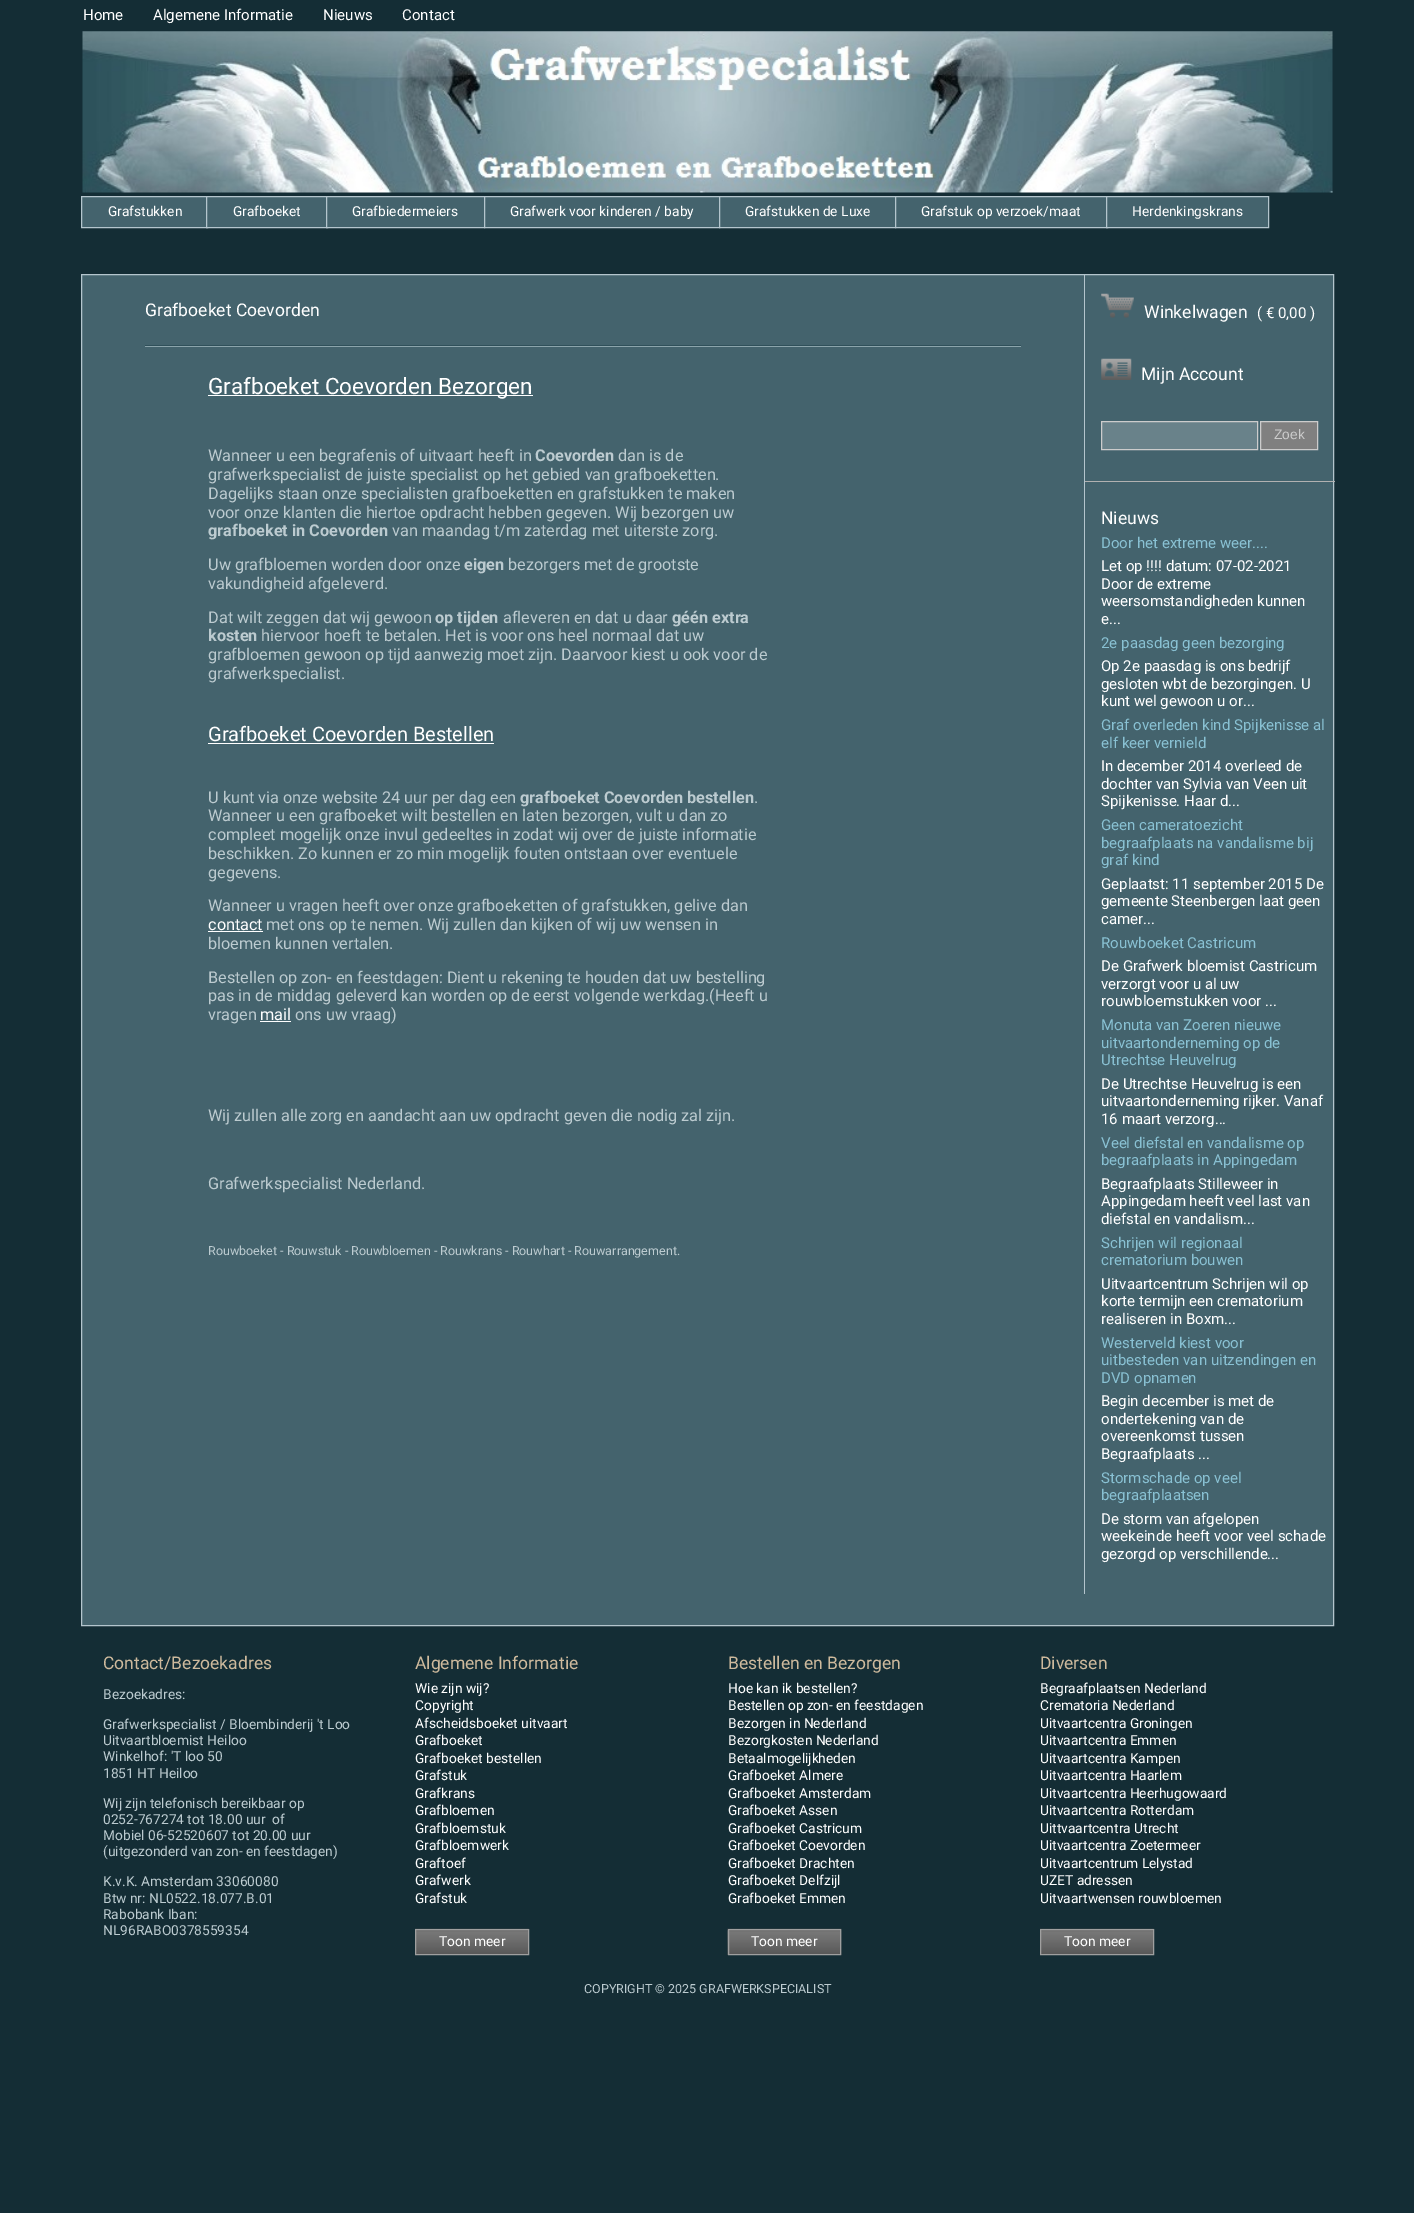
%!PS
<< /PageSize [1414 2213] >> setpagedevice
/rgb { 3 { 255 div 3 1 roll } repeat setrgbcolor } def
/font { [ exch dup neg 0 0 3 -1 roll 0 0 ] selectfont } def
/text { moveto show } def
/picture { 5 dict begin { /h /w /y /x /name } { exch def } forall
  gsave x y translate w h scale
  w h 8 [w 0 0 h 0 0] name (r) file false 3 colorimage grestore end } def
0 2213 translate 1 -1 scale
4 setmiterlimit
20 45 53 rgb
0 0 1414 2213 rectfill
(img_01.rgb) 82 31 1251 162 picture
68 99 109 rgb
82 197 124 30 rectfill
180 197 205 rgb
81.5 196.5 126 31 rectstroke
68 99 109 rgb
207 197 119 30 rectfill
180 197 205 rgb
206.5 196.5 121 31 rectstroke
68 99 109 rgb
326.5 196.5 moveto 158 0 rlineto 0 31 rlineto -158 0 rlineto closepath gsave fill grestore
180 197 205 rgb
stroke
68 99 109 rgb
484.5 196.5 moveto 235 0 rlineto 0 31 rlineto -235 0 rlineto closepath gsave fill grestore
180 197 205 rgb
stroke
68 99 109 rgb
719.5 196.5 moveto 176 0 rlineto 0 31 rlineto -176 0 rlineto closepath gsave fill grestore
180 197 205 rgb
stroke
68 99 109 rgb
896 197 210 30 rectfill
180 197 205 rgb
895.5 196.5 212 31 rectstroke
68 99 109 rgb
1106.5 196.5 moveto 162 0 rlineto 0 31 rlineto -162 0 rlineto closepath gsave fill grestore
180 197 205 rgb
stroke
68 99 109 rgb
81.5 274.5 moveto 1252 0 rlineto 0 1351 rlineto -1252 0 rlineto closepath gsave fill grestore
180 197 205 rgb
stroke
48 80 90 rgb
145 345 876 1 rectfill
139 164 171 rgb
145 346 876 1 rectfill
255 255 255 rgb
208 395 325 1 rectfill
208 743 286 1 rectfill
208 931 55 1 rectfill
260 1021 31 1 rectfill
180 197 205 rgb
1084 275 1 206 rectfill
(img_02.rgb) 1101 293 33 25 picture
(img_03.rgb) 1101 358 31 22 picture
105 130 138 rgb
1101.5 421.5 moveto 156 0 rlineto 0 28 rlineto -156 0 rlineto closepath gsave fill grestore
204 204 204 rgb
stroke
128 128 128 rgb
1260.5 421.5 moveto 57 0 rlineto 0 28 rlineto -57 0 rlineto closepath gsave fill grestore
204 204 204 rgb
stroke
177 177 177 rgb
1084 481 251 1 rectfill
180 197 205 rgb
1084 481 1 1113 rectfill
(img_04.rgb) 415 1928 114 26 picture
159 159 159 rgb
415.5 1929.5 113 25 rectstroke
(img_05.rgb) 727 1928 115 27 picture
728.5 1929.5 112 25 rectstroke
(img_04.rgb) 1040 1928 114 26 picture
1040.5 1929.5 113 25 rectstroke
/Roboto-Regular 15 font
255 255 255 rgb
(Home) 83 20 text
(Algemene Informatie) 153 20 text
(Nieuws) 323 20 text
(Contact) 402 20 text
/Roboto-Regular 13.75 font
(Grafstukken) 108 216 text
(Grafboeket) 233 216 text
(Grafbiedermeiers) 352 216 text
(Grafwerk voor kinderen / baby) 510 216 text
(Grafstukken de Luxe) 745 216 text
(Grafstuk op verzoek/maat) 921 216 text
(Herdenkingskrans) 1132 216 text
/Roboto-Regular 17.5 font
(Grafboeket Coevorden) 145 316 text
/Roboto-Regular 22.5 font
(Grafboeket Coevorden Bezorgen) 208 394 text
/Roboto-Regular 16.25 font
188 203 208 rgb
(Wanneer u een begrafenis of uitvaart heeft in) 208 461 text
/Roboto-Bold 16.25 font
(Coevorden) 535 461 text
/Roboto-Regular 16.25 font
(dan is de) 618 461 text
(grafwerkspecialist de juiste specialist op het gebied van grafboeketten.) 208 480 text
(Dagelijks staan onze specialisten grafboeketten en grafstukken te maken) 208 499 text
(voor onze klanten die hiertoe opdracht hebben gegeven. Wij bezorgen uw) 208 518 text
/Roboto-Bold 16.25 font
(grafboeket in Coevorden) 208 536 text
/Roboto-Regular 16.25 font
(van maandag t/m zaterdag met uiterste zorg.) 392 536 text
(Uw grafbloemen worden door onze) 208 570 text
/Roboto-Bold 16.25 font
(eigen) 464 570 text
/Roboto-Regular 16.25 font
(bezorgers met de grootste) 508 570 text
(vakundigheid afgeleverd.) 208 589 text
(Dat wilt zeggen dat wij gewoon) 208 623 text
/Roboto-Bold 16.25 font
(op tijden) 435 623 text
/Roboto-Regular 16.25 font
(afleveren en dat u daar) 503 623 text
/Roboto-Bold 16.25 font
(géén extra) 672 623 text
(kosten) 208 641 text
/Roboto-Regular 16.25 font
(hiervoor hoeft te betalen. Het is voor ons heel normaal dat uw) 261 641 text
(grafbloemen gewoon op tijd aanwezig moet zijn. Daarvoor kiest u ook voor de) 208 660 text
(grafwerkspecialist.) 208 679 text
/Roboto-Regular 20 font
255 255 255 rgb
(Grafboeket Coevorden Bestellen) 208 741 text
/Roboto-Regular 16.25 font
188 203 208 rgb
(U kunt via onze website 24 uur per dag een) 208 803 text
/Roboto-Bold 16.25 font
(grafboeket Coevorden bestellen) 520 803 text
/Roboto-Regular 16.25 font
(.) 754 803 text
(Wanneer u een grafboeket wilt bestellen en laten bezorgen, vult u dan zo) 208 821 text
(compleet mogelijk onze invul gedeeltes in zodat wij over de juiste informatie) 208 840 text
(beschikken. Zo kunnen er zo min mogelijk fouten ontstaan over eventuele) 208 859 text
(gegevens.) 208 878 text
(Wanneer u vragen heeft over onze grafboeketten of grafstukken, gelive dan) 208 911 text
255 255 255 rgb
(contact) 208 930 text
188 203 208 rgb
(met ons op te nemen. Wij zullen dan kijken of wij uw wensen in) 266 930 text
(bloemen kunnen vertalen.) 208 949 text
(Bestellen op zon- en feestdagen: Dient u rekening te houden dat uw bestelling) 208 983 text
(pas in de middag geleverd kan worden op de eerst volgende werkdag.\(Heeft u) 208 1001 text
(vragen) 208 1020 text
255 255 255 rgb
(mail) 260 1020 text
188 203 208 rgb
(ons uw vraag\)) 295 1020 text
(Wij zullen alle zorg en aandacht aan uw opdracht geven die nodig zal zijn.) 208 1121 text
(Grafwerkspecialist Nederland.) 208 1189 text
/Roboto-Regular 12.5 font
(Rouwboeket - Rouwstuk - Rouwbloemen - Rouwkrans - Rouwhart - Rouwarrangement.) 208 1255 text
/Roboto-Regular 17.5 font
255 255 255 rgb
(Winkelwagen) 1144 318 text
/Roboto-Regular 15 font
(\( € 0,00 \)) 1257 318 text
/Roboto-Regular 17.5 font
(Mijn Account) 1141 380 text
/LiberationSans-Regular 13.75 font
204 204 204 rgb
(Zoek) 1274 439 text
/Roboto-Regular 17.5 font
255 255 255 rgb
(Nieuws) 1101 524 text
/Roboto-Regular 15 font
137 193 211 rgb
(Door het extreme weer....) 1101 548 text
255 255 255 rgb
(Let op !!!! datum: 07-02-2021) 1101 571 text
(Door de extreme) 1101 589 text
(weersomstandigheden kunnen) 1101 606 text
(e...) 1101 624 text
137 193 211 rgb
(2e paasdag geen bezorging) 1101 648 text
255 255 255 rgb
(Op 2e paasdag is ons bedrijf) 1101 671 text
(gesloten wbt de bezorgingen. U) 1101 689 text
(kunt wel gewoon u or...) 1101 706 text
137 193 211 rgb
(Graf overleden kind Spijkenisse al) 1101 730 text
(elf keer vernield) 1101 748 text
255 255 255 rgb
(In december 2014 overleed de) 1101 771 text
(dochter van Sylvia van Veen uit) 1101 789 text
(Spijkenisse. Haar d...) 1101 806 text
137 193 211 rgb
(Geen cameratoezicht) 1101 830 text
(begraafplaats na vandalisme bij) 1101 848 text
(graf kind) 1101 865 text
255 255 255 rgb
(Geplaatst: 11 september 2015 De) 1101 889 text
(gemeente Steenbergen laat geen) 1101 906 text
(camer...) 1101 924 text
137 193 211 rgb
(Rouwboeket Castricum) 1101 948 text
255 255 255 rgb
(De Grafwerk bloemist Castricum) 1101 971 text
(verzorgt voor u al uw) 1101 989 text
(rouwbloemstukken voor ...) 1101 1006 text
137 193 211 rgb
(Monuta van Zoeren nieuwe) 1101 1030 text
(uitvaartonderneming op de) 1101 1048 text
(Utrechtse Heuvelrug) 1101 1065 text
255 255 255 rgb
(De Utrechtse Heuvelrug is een) 1101 1089 text
(uitvaartonderneming rijker. Vanaf) 1101 1106 text
(16 maart verzorg...) 1101 1124 text
137 193 211 rgb
(Veel diefstal en vandalisme op) 1101 1148 text
(begraafplaats in Appingedam) 1101 1165 text
255 255 255 rgb
(Begraafplaats Stilleweer in) 1101 1189 text
(Appingedam heeft veel last van) 1101 1206 text
(diefstal en vandalism...) 1101 1224 text
137 193 211 rgb
(Schrijen wil regionaal) 1101 1248 text
(crematorium bouwen) 1101 1265 text
255 255 255 rgb
(Uitvaartcentrum Schrijen wil op) 1101 1289 text
(korte termijn een crematorium) 1101 1306 text
(realiseren in Boxm...) 1101 1324 text
137 193 211 rgb
(Westerveld kiest voor) 1101 1348 text
(uitbesteden van uitzendingen en) 1101 1365 text
(DVD opnamen) 1101 1383 text
255 255 255 rgb
(Begin december is met de) 1101 1406 text
(ondertekening van de) 1101 1424 text
(overeenkomst tussen) 1101 1441 text
(Begraafplaats ...) 1101 1459 text
137 193 211 rgb
(Stormschade op veel) 1101 1483 text
(begraafplaatsen) 1101 1500 text
255 255 255 rgb
(De storm van afgelopen) 1101 1524 text
(weekeinde heeft voor veel schade) 1101 1541 text
(gezorgd op verschillende...) 1101 1559 text
/Roboto-Regular 17.5 font
206 186 157 rgb
(Contact/Bezoekadres) 103 1669 text
/Roboto-Regular 13.75 font
188 203 208 rgb
(Bezoekadres:) 103 1699 text
(Grafwerkspecialist / Bloembinderij 't Loo) 103 1729 text
(Uitvaartbloemist Heiloo) 103 1745 text
(Winkelhof: 'T loo 50) 103 1761 text
(1851 HT Heiloo) 103 1778 text
(Wij zijn telefonisch bereikbaar op) 103 1808 text
(0252-767274 tot 18.00 uur  of) 103 1824 text
(Mobiel 06-52520607 tot 20.00 uur) 103 1840 text
(\(uitgezonderd van zon- en feestdagen\)) 103 1856 text
(K.v.K. Amsterdam 33060080) 103 1886 text
(Btw nr: NL0522.18.077.B.01) 103 1903 text
(Rabobank Iban:) 103 1919 text
(NL96RABO0378559354) 103 1935 text
/Roboto-Regular 17.5 font
206 186 157 rgb
(Algemene Informatie) 415 1669 text
/Roboto-Regular 13.75 font
255 255 255 rgb
(Wie zijn wij?) 415 1693 text
(Copyright) 415 1710 text
(Afscheidsboeket uitvaart) 415 1728 text
(Grafboeket) 415 1745 text
(Grafboeket bestellen) 415 1763 text
(Grafstuk) 415 1780 text
(Grafkrans) 415 1798 text
(Grafbloemen) 415 1815 text
(Grafbloemstuk) 415 1833 text
(Grafbloemwerk) 415 1850 text
(Graftoef) 415 1868 text
(Grafwerk) 415 1885 text
(Grafstuk) 415 1903 text
(Toon meer) 439 1946 text
/Roboto-Regular 17.5 font
206 186 157 rgb
(Bestellen en Bezorgen) 728 1669 text
/Roboto-Regular 13.75 font
255 255 255 rgb
(Hoe kan ik bestellen?) 728 1693 text
(Bestellen op zon- en feestdagen) 728 1710 text
(Bezorgen in Nederland) 728 1728 text
(Bezorgkosten Nederland) 728 1745 text
(Betaalmogelijkheden) 728 1763 text
(Grafboeket Almere) 728 1780 text
(Grafboeket Amsterdam) 728 1798 text
(Grafboeket Assen) 728 1815 text
(Grafboeket Castricum) 728 1833 text
(Grafboeket Coevorden) 728 1850 text
(Grafboeket Drachten) 728 1868 text
(Grafboeket Delfzijl) 728 1885 text
(Grafboeket Emmen) 728 1903 text
(Toon meer) 751 1946 text
/Roboto-Regular 17.5 font
206 186 157 rgb
(Diversen) 1040 1669 text
/Roboto-Regular 13.75 font
255 255 255 rgb
(Begraafplaatsen Nederland) 1040 1693 text
(Crematoria Nederland) 1040 1710 text
(Uitvaartcentra Groningen) 1040 1728 text
(Uitvaartcentra Emmen) 1040 1745 text
(Uitvaartcentra Kampen) 1040 1763 text
(Uitvaartcentra Haarlem) 1040 1780 text
(Uitvaartcentra Heerhugowaard) 1040 1798 text
(Uitvaartcentra Rotterdam) 1040 1815 text
(Uittvaartcentra Utrecht) 1040 1833 text
(Uitvaartcentra Zoetermeer) 1040 1850 text
(Uitvaartcentrum Lelystad) 1040 1868 text
(UZET adressen) 1040 1885 text
(Uitvaartwensen rouwbloemen) 1040 1903 text
(Toon meer) 1064 1946 text
/Roboto-Regular 12.5 font
188 203 208 rgb
(COPYRIGHT © 2025 GRAFWERKSPECIALIST) 584 1993 text
showpage
